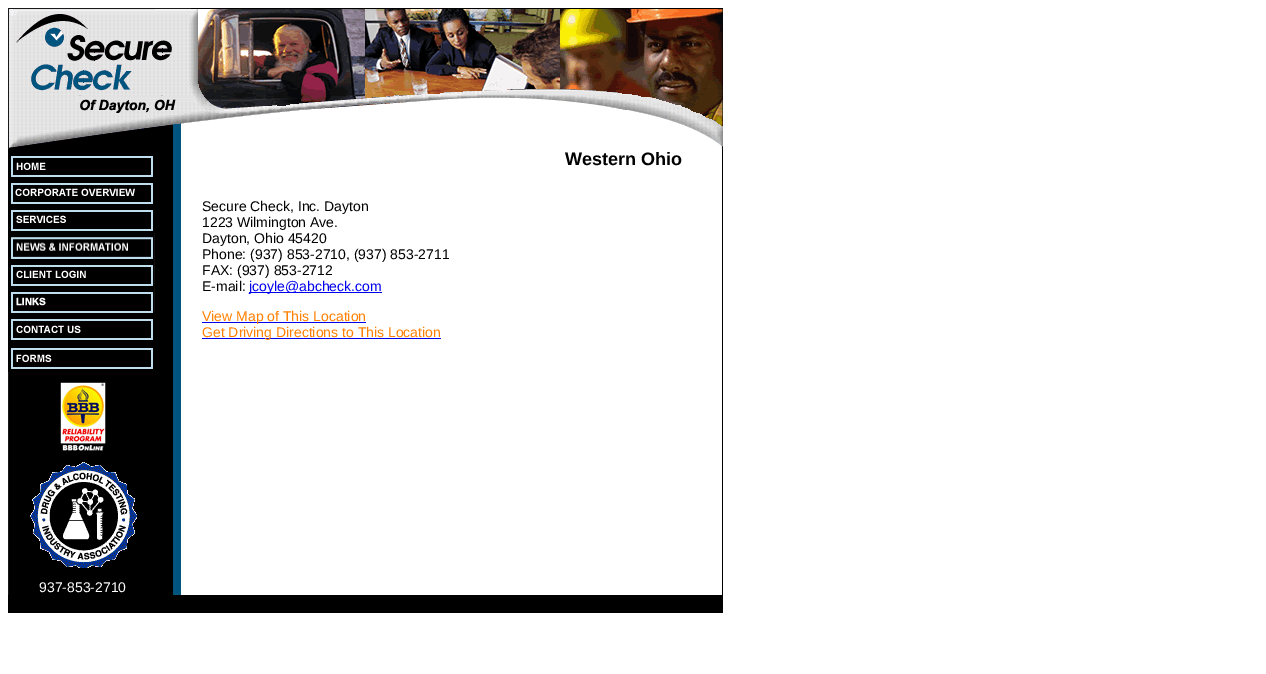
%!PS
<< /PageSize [1266 674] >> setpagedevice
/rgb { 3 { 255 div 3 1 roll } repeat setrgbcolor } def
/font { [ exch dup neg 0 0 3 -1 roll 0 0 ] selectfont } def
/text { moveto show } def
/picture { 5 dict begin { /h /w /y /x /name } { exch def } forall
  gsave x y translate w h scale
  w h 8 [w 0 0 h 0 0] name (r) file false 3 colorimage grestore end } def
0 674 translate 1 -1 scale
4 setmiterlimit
255 255 255 rgb
0 0 1266 674 rectfill
(img_01.rgb) 8 8 715 141 picture
0 0 238 rgb
249 292 133 1 rectfill
202 322 164 1 rectfill
202 338 239 1 rectfill
0 0 0 rgb
722 149 1 446 rectfill
(img_02.rgb) 8 149 173 446 picture
(img_03.rgb) 8 149 145 30 picture
(img_04.rgb) 8 179 145 27 picture
(img_05.rgb) 8 206 145 27 picture
(img_06.rgb) 8 233 147 27 picture
(img_07.rgb) 8 260 147 27 picture
(img_08.rgb) 8 287 147 27 picture
(img_09.rgb) 8 314 145 29 picture
(img_10.rgb) 8 343 145 29 picture
(img_11.rgb) 60 382 46 69 picture
(img_12.rgb) 30 462 107 106 picture
8 595 715 18 rectfill
/LiberationSans-Bold 18 font
(Western Ohio) 565 165 text
/LiberationSans-Regular 14 font
(Secure Check, Inc. Dayton) 202 211 text
(1223 Wilmington Ave.) 202 227 text
(Dayton, Ohio 45420) 202 243 text
(Phone: \(937\) 853-2710, \(937\) 853-2711) 202 259 text
(FAX: \(937\) 853-2712) 202 275 text
(E-mail:) 202 291 text
0 0 238 rgb
(jcoyle@abcheck.com) 249 291 text
255 128 0 rgb
(View Map of This Location) 202 321 text
(Get Driving Directions to This Location) 202 337 text
255 255 255 rgb
(937-853-2710) 39 592 text
showpage
